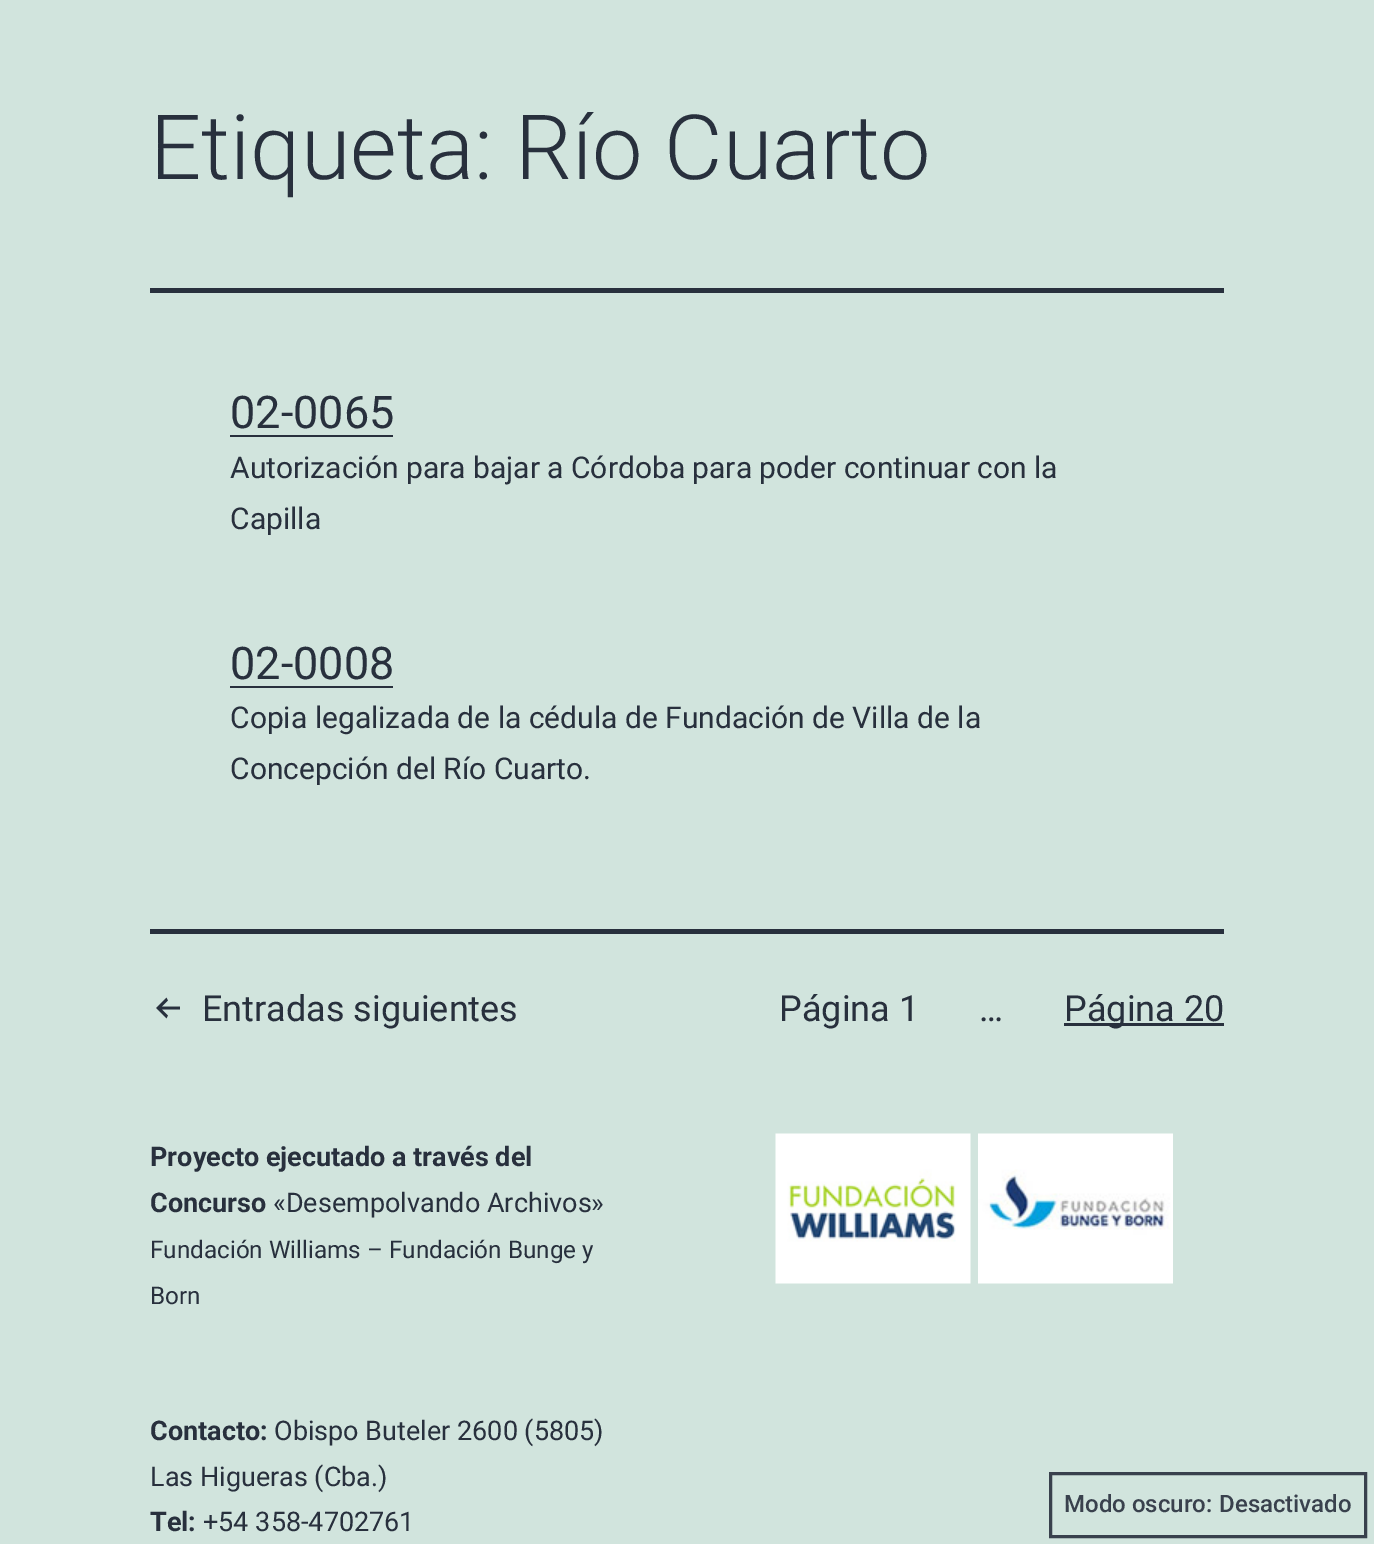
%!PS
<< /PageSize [1374 1544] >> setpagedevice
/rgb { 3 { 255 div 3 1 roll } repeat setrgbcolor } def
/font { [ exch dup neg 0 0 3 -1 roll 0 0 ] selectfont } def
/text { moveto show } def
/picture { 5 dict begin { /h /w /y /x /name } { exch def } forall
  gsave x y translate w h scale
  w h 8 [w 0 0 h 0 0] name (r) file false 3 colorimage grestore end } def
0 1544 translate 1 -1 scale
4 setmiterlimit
209 228 221 rgb
0 0 1374 1544 rectfill
40 48 61 rgb
150 288 1074 5 rectfill
230 435 163 2 rectfill
230 686 163 2 rectfill
150 929 1074 5 rectfill
(img_01.rgb) 156 997 24 22 picture
1064 1023 160 3 rectfill
(img_02.rgb) 775 1133 196 151 picture
(img_03.rgb) 978 1133 195 151 picture
57 65 77 rgb
3 setlinewidth
1050.5 1473.5 315 63 rectstroke
/Roboto-Light 90 font
40 48 61 rgb
(Etiqueta: Río Cuarto) 150 179 text
/Roboto-Regular 45 font
(02-0065) 230 428 text
/Roboto-Regular 30 font
(Autorización para bajar a Córdoba para poder continuar con la) 230 478 text
(Capilla) 230 529 text
/Roboto-Regular 45 font
(02-0008) 230 679 text
/Roboto-Regular 30 font
(Copia legalizada de la cédula de Fundación de Villa de la) 230 728 text
(Concepción del Río Cuarto.) 230 779 text
/Roboto-Regular 36 font
(Entradas siguientes) 202 1021 text
(Página 1) 779 1021 text
(…) 979 1021 text
(Página 20) 1064 1021 text
/Roboto-Bold 27 font
(Proyecto ejecutado a través del) 150 1166 text
(Concurso) 150 1212 text
/Roboto-Regular 27 font
(«Desempolvando Archivos») 273 1212 text
/Roboto-Regular 24.25 font
(Fundación Williams – Fundación Bunge y) 150 1258 text
(Born) 150 1304 text
/Roboto-Bold 27 font
(Contacto:) 150 1440 text
/Roboto-Regular 27 font
(Obispo Buteler 2600 \(5805\)) 274 1440 text
(Las Higueras \(Cba.\)) 150 1486 text
/Roboto-Bold 27 font
(Tel:) 150 1531 text
/Roboto-Regular 27 font
(+54 358-4702761) 203 1531 text
/Roboto-Medium 24 font
57 65 77 rgb
(Modo oscuro:) 1064 1512 text
(Desactivado) 1219 1512 text
showpage
